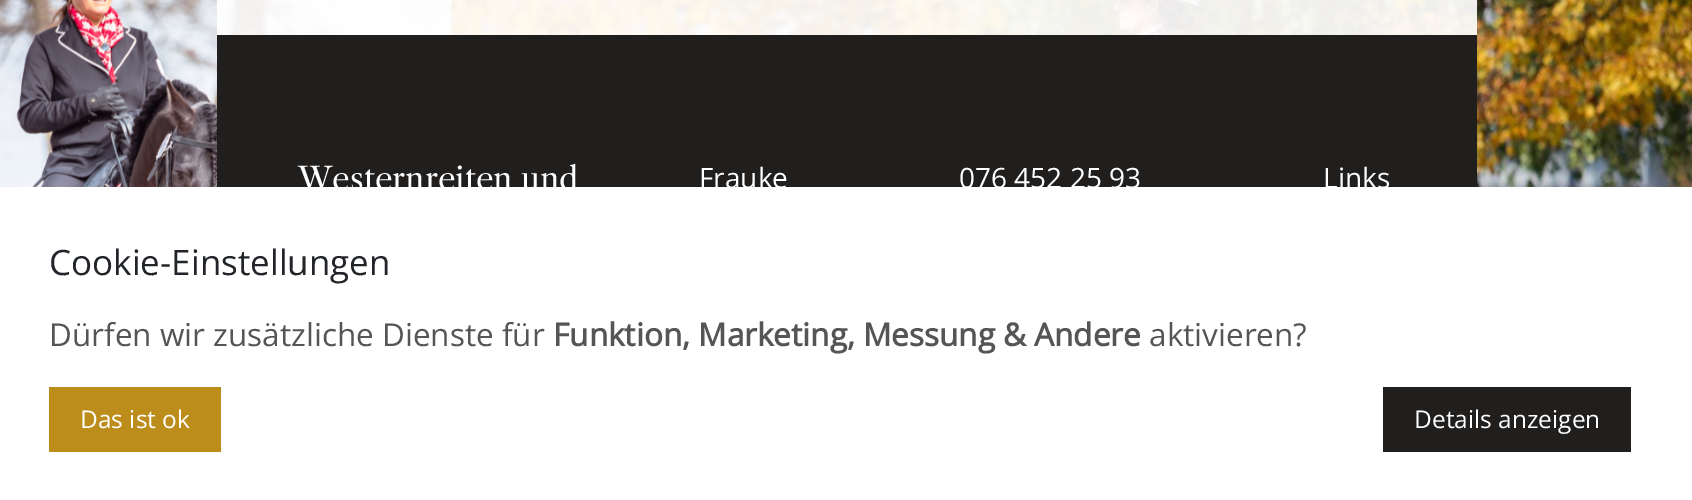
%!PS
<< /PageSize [1692 500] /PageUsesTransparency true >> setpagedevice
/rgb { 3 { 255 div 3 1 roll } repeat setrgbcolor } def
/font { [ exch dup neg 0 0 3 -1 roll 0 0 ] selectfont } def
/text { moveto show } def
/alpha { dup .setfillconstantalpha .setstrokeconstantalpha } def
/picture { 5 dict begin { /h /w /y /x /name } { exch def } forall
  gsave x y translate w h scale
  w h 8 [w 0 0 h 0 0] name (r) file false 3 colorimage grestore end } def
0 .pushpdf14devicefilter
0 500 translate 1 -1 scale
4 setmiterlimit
255 255 255 rgb
0 0 1692 500 rectfill
(img_01.rgb) 0 0 1692 187 picture
0.92 alpha
217 0 1260 35 rectfill
1 alpha
33 31 29 rgb
217 35 1260 152 rectfill
188 141 27 rgb
49 387 172 65 rectfill
33 31 29 rgb
1383 387 248 65 rectfill
/LibreCaslonText-Regular 31.5 font
255 255 255 rgb
(Westernreiten und) 298 190 text
/OpenSans-Regular 28 font
(Frauke) 699 188 text
(076 452 25 93) 959 188 text
(Links) 1323 188 text
/OpenSans-Regular 35 font
33 37 41 rgb
(Cookie-Einstellungen) 49 275 text
/OpenSans-Regular 31.5 font
85 85 85 rgb
(Dürfen wir zusätzliche Dienste für) 49 346 text
/OpenSans-Bold 31.5 font
(Funktion, Marketing, Messung & Andere) 553 346 text
/OpenSans-Regular 31.5 font
(aktivieren?) 1149 346 text
/OpenSans-Regular 24.5 font
255 255 255 rgb
(Das ist ok) 80 428 text
(Details anzeigen) 1414 428 text
.poppdf14devicefilter showpage
